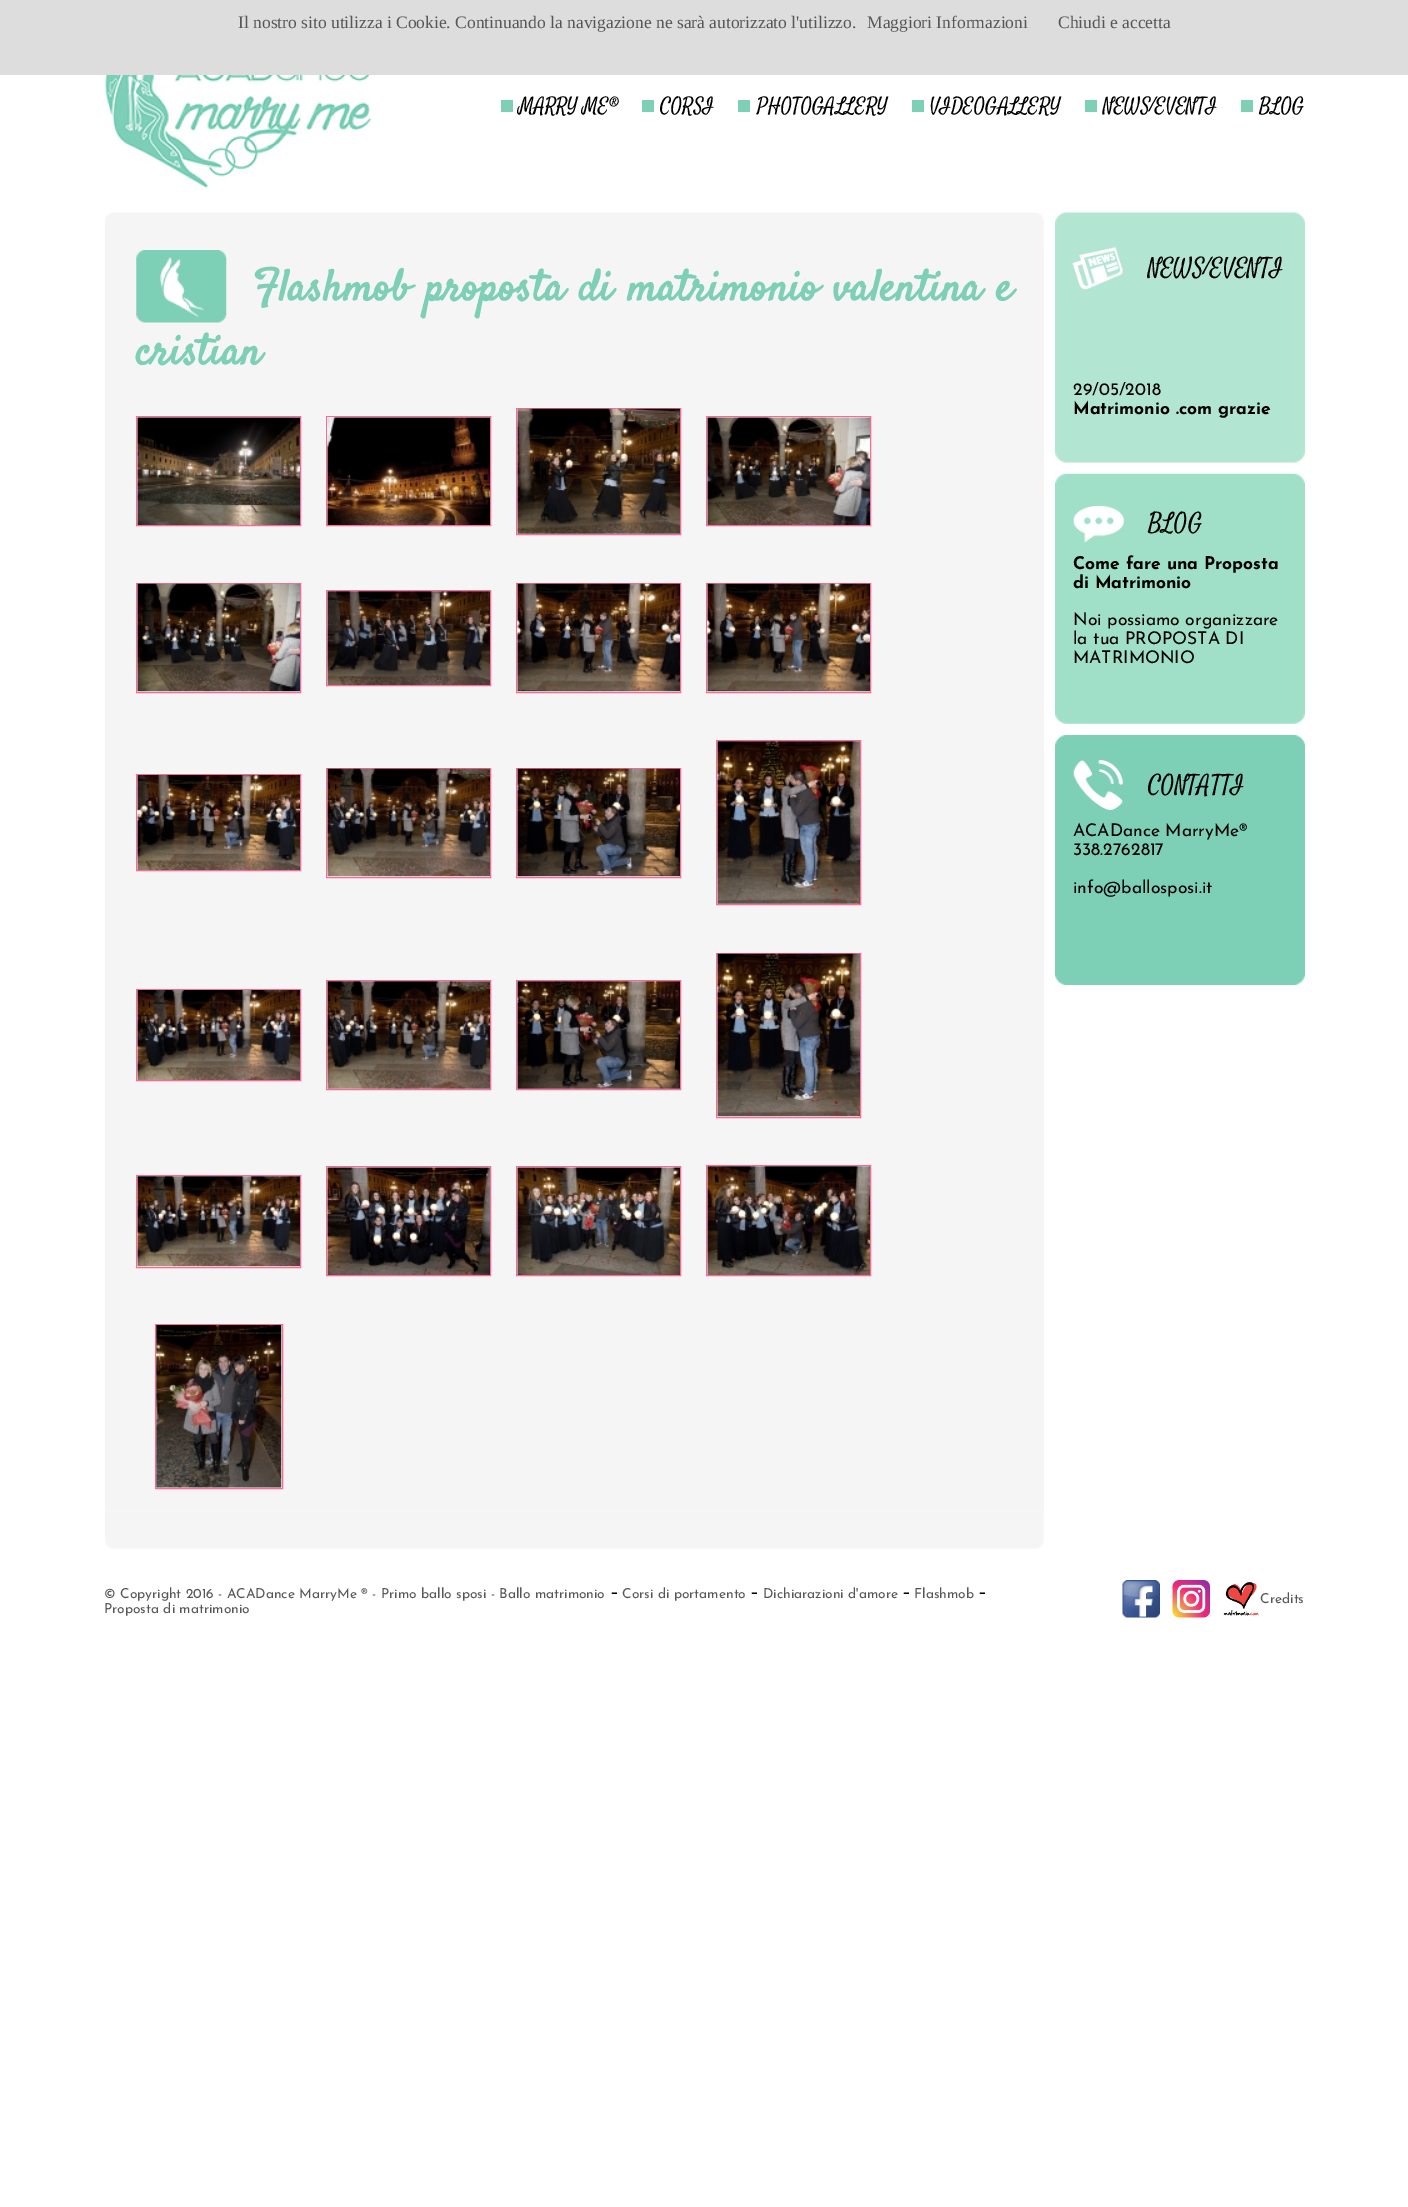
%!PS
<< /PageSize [1408 2207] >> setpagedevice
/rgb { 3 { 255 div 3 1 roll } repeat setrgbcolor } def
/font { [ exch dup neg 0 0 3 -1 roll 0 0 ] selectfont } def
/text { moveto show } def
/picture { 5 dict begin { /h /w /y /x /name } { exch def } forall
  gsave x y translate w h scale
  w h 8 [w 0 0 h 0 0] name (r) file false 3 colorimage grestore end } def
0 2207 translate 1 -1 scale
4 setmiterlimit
255 255 255 rgb
0 0 1408 2207 rectfill
221 221 221 rgb
0 0 1408 75 rectfill
(img_01.rgb) 105 75 267 113 picture
125 207 182 rgb
501 100 12 12 rectfill
642 100 12 12 rectfill
738 100 12 12 rectfill
912 100 12 12 rectfill
1085 100 12 12 rectfill
1241 100 12 12 rectfill
(img_02.rgb) 105 212 939 38 picture
245 245 245 rgb
105 250 939 1261 rectfill
(img_03.rgb) 136 250 91 73 picture
255 102 153 rgb
136.5 416.5 164 109 rectstroke
(img_04.rgb) 137 417 163 108 picture
326.5 416.5 164 109 rectstroke
(img_05.rgb) 327 417 163 108 picture
516.5 408.5 164 126 rectstroke
(img_06.rgb) 517 408 163 126 picture
706.5 416.5 164 109 rectstroke
(img_07.rgb) 707 417 163 108 picture
136.5 583.5 164 109 rectstroke
(img_08.rgb) 137 583 163 109 picture
326.5 590.5 164 95 rectstroke
(img_09.rgb) 327 591 163 94 picture
516.5 583.5 164 109 rectstroke
(img_10.rgb) 517 583 163 109 picture
706.5 583.5 164 109 rectstroke
(img_10.rgb) 707 583 163 109 picture
136.5 774.5 164 96 rectstroke
(img_11.rgb) 137 775 163 95 picture
326.5 768.5 164 109 rectstroke
(img_12.rgb) 327 768 163 109 picture
516.5 768.5 164 109 rectstroke
(img_13.rgb) 517 768 163 109 picture
716.5 740.5 144 164 rectstroke
(img_14.rgb) 717 741 143 163 picture
136.5 989.5 164 91 rectstroke
(img_15.rgb) 137 990 163 90 picture
326.5 980.5 164 109 rectstroke
(img_16.rgb) 327 981 163 108 picture
516.5 980.5 164 109 rectstroke
(img_17.rgb) 517 981 163 108 picture
716.5 953.5 144 164 rectstroke
(img_18.rgb) 717 953 143 164 picture
136.5 1175.5 164 92 rectstroke
(img_19.rgb) 137 1176 163 91 picture
326.5 1166.5 164 109 rectstroke
(img_20.rgb) 327 1167 163 108 picture
516.5 1166.5 164 109 rectstroke
(img_21.rgb) 517 1167 163 108 picture
706.5 1165.5 164 110 rectstroke
(img_22.rgb) 707 1166 163 109 picture
155.5 1324.5 127 164 rectstroke
(img_23.rgb) 156 1325 126 163 picture
(img_24.rgb) 105 1511 939 38 picture
(img_25.rgb) 1055 212 250 251 picture
(img_26.rgb) 1072 247 51 43 picture
(img_27.rgb) 1055 473 250 251 picture
(img_28.rgb) 1073 506 51 37 picture
(img_29.rgb) 1055 735 250 250 picture
(img_30.rgb) 1073 760 50 50 picture
(img_31.rgb) 1122 1580 38 38 picture
(img_32.rgb) 1172 1580 38 38 picture
(img_33.rgb) 1223 1582 36 34 picture
/LiberationSerif-Regular 17.5 font
87 87 86 rgb
(Il nostro sito utilizza i Cookie. Continuando la navigazione ne sarà autorizzato l'utilizzo.) 238 28 text
(Maggiori Informazioni) 867 28 text
(Chiudi e accetta) 1058 28 text
/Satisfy-Regular 20 font
0 0 0 rgb
(MARRY ME®) 519 111 text
(CORSI) 660 111 text
(PHOTOGALLERY) 757 111 text
(VIDEOGALLERY) 930 111 text
(NEWS/EVENTI) 1103 111 text
(BLOG) 1259 111 text
/Satisfy-Bold 43.75 font
125 207 182 rgb
253 300 moveto 2.5 0 32 (Flashmob proposta di matrimonio valentina e) widthshow
(cristian) 136 364 text
/Satisfy-Regular 23.75 font
0 0 0 rgb
(NEWS/EVENTI) 1148 274 text
/JosefinSans-Regular 17.5 font
(29/05/2018) 1073 395 text
/JosefinSans-Bold 17.5 font
(Matrimonio .com grazie) 1073 414 text
/Satisfy-Regular 23.75 font
(BLOG) 1148 529 text
/JosefinSans-Bold 17.5 font
(Come fare una Proposta) 1073 569 text
(di Matrimonio) 1073 588 text
/JosefinSans-Regular 17.5 font
(Noi possiamo organizzare) 1073 625 text
(la tua PROPOSTA DI) 1073 644 text
(MATRIMONIO) 1073 663 text
/Satisfy-Regular 23.75 font
(CONTATTI) 1148 791 text
/JosefinSans-Regular 17.5 font
(ACADance MarryMe®) 1073 836 text
(338.2762817) 1073 855 text
(info@ballosposi.it) 1073 893 text
/JosefinSans-Regular 13.75 font
87 87 86 rgb
(© Copyright 2016 - ACADance MarryMe ® - Primo ballo sposi - Ballo matrimonio) 104 1598 text
/LiberationSerif-Regular 20 font
0 0 0 rgb
(-) 611 1598 text
/JosefinSans-Regular 13.75 font
87 87 86 rgb
(Corsi di portamento) 622 1598 text
/LiberationSerif-Regular 20 font
0 0 0 rgb
(-) 751 1598 text
/JosefinSans-Regular 13.75 font
87 87 86 rgb
(Dichiarazioni d'amore) 763 1598 text
/LiberationSerif-Regular 20 font
0 0 0 rgb
(-) 903 1598 text
/JosefinSans-Regular 13.75 font
87 87 86 rgb
(Flashmob) 914 1598 text
/LiberationSerif-Regular 20 font
0 0 0 rgb
(-) 979 1598 text
/JosefinSans-Regular 13.75 font
87 87 86 rgb
(Proposta di matrimonio) 104 1613 text
(Credits) 1260 1603 text
showpage
